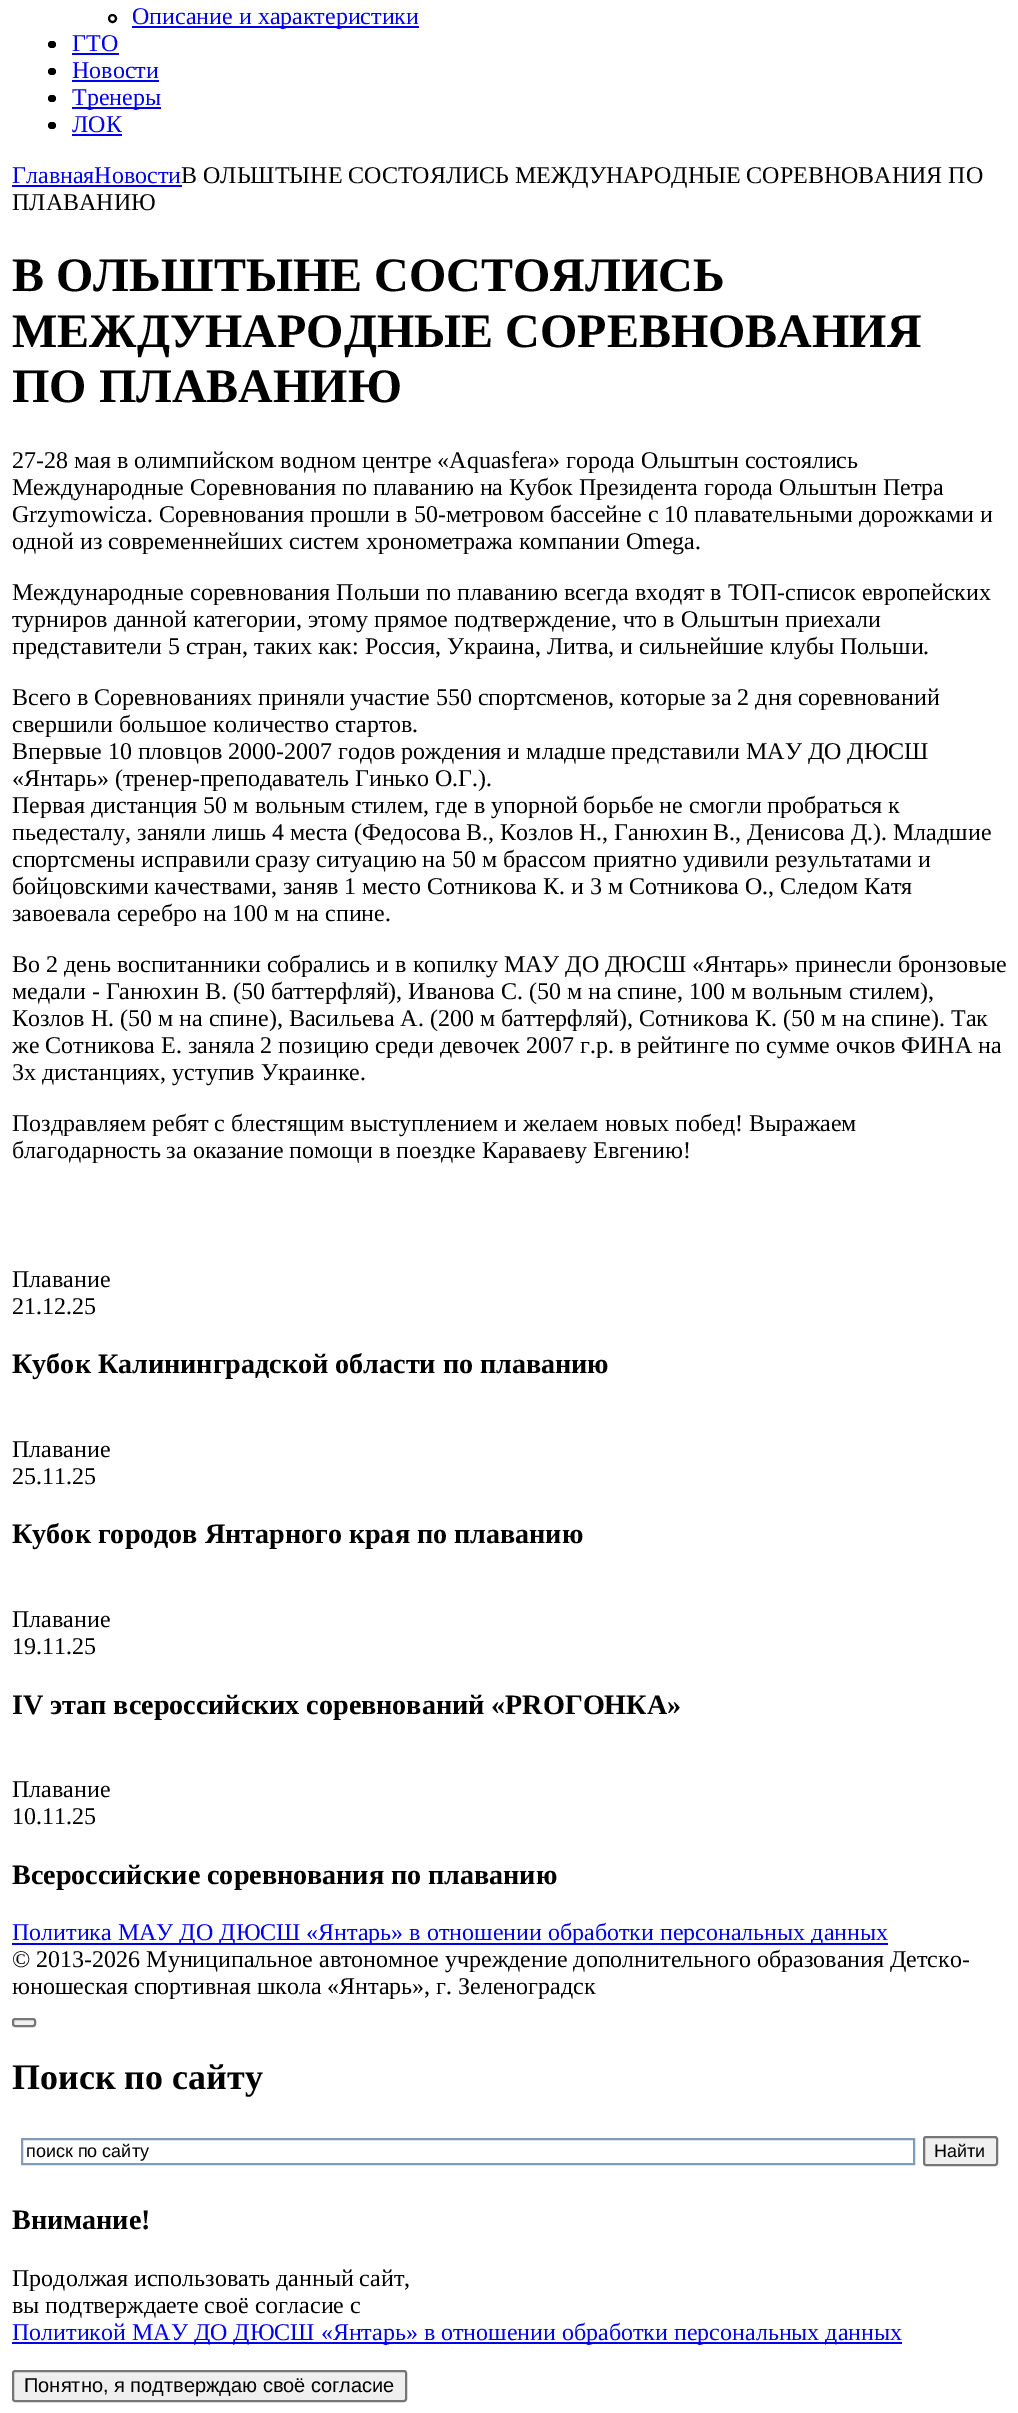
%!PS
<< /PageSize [1018 2413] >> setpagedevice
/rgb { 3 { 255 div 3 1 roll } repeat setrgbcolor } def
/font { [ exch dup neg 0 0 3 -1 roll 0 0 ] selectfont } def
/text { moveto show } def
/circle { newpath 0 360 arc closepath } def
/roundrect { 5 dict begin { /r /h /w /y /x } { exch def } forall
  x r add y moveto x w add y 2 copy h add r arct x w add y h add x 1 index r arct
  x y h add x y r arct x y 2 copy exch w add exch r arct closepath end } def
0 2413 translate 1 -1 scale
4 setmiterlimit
255 255 255 rgb
0 0 1018 2413 rectfill
0 0 0 rgb
2 setlinewidth
112.5 18.5 3.5 circle stroke
0 0 238 rgb
132 26 287 2 rectfill
0 0 0 rgb
48 41 8 7 3.5 roundrect fill
0 0 238 rgb
72 53 47 2 rectfill
0 0 0 rgb
48 68 8 7 3.5 roundrect fill
0 0 238 rgb
72 80 87 2 rectfill
0 0 0 rgb
48 95 8 7 3.5 roundrect fill
0 0 238 rgb
72 107 89 2 rectfill
0 0 0 rgb
48 122 8 7 3.5 roundrect fill
0 0 238 rgb
72 134 50 2 rectfill
12 185 170 2 rectfill
12 1943 876 2 rectfill
239 239 239 rgb
13 2019 22 7 2 roundrect gsave fill grestore
118 118 118 rgb
stroke
127 157 185 rgb
22 2139 892 25 rectstroke
239 239 239 rgb
924 2137 73 28 2 roundrect gsave fill grestore
118 118 118 rgb
stroke
0 0 238 rgb
12 2342 890 2 rectfill
239 239 239 rgb
13 2371 393 30 2 roundrect gsave fill grestore
118 118 118 rgb
stroke
/LiberationSerif-Regular 24 font
0 0 238 rgb
(Описание и характеристики) 132 24 text
(ГТО) 72 51 text
(Новости) 72 78 text
(Тренеры) 72 105 text
(ЛОК) 72 132 text
(ГлавнаяНовости) 12 183 text
0 0 0 rgb
(В ОЛЬШТЫНЕ СОСТОЯЛИСЬ МЕЖДУНАРОДНЫЕ СОРЕВНОВАНИЯ ПО) 181 183 text
(ПЛАВАНИЮ) 12 210 text
/LiberationSerif-Bold 48 font
(В ОЛЬШТЫНЕ СОСТОЯЛИСЬ) 12 291 text
(МЕЖДУНАРОДНЫЕ СОРЕВНОВАНИЯ) 12 347 text
(ПО ПЛАВАНИЮ) 12 402 text
/LiberationSerif-Regular 24 font
(27-28 мая в олимпийском водном центре «Aquasfera» города Ольштын состоялись) 12 468 text
(Международные Соревнования по плаванию на Кубок Президента города Ольштын Петра) 12 495 text
(Grzymowicza. Соревнования прошли в 50-метровом бассейне с 10 плавательными дорожками и) 12 522 text
(одной из современнейших систем хронометража компании Omega.) 12 549 text
(Международные соревнования Польши по плаванию всегда входят в ТОП-список европейских) 12 600 text
(турниров данной категории, этому прямое подтверждение, что в Ольштын приехали) 12 627 text
(представители 5 стран, таких как: Россия, Украина, Литва, и сильнейшие клубы Польши.) 12 654 text
(Всего в Соревнованиях приняли участие 550 спортсменов, которые за 2 дня соревнований) 12 705 text
(свершили большое количество стартов.) 12 732 text
(Впервые 10 пловцов 2000-2007 годов рождения и младше представили МАУ ДО ДЮСШ) 12 759 text
(«Янтарь» \(тренер-преподаватель Гинько О.Г.\).) 12 786 text
(Первая дистанция 50 м вольным стилем, где в упорной борьбе не смогли пробраться к) 12 813 text
(пьедесталу, заняли лишь 4 места \(Федосова В., Козлов Н., Ганюхин В., Денисова Д.\). Младшие) 12 840 text
(спортсмены исправили сразу ситуацию на 50 м брассом приятно удивили результатами и) 12 867 text
(бойцовскими качествами, заняв 1 место Сотникова К. и 3 м Сотникова О., Следом Катя) 12 894 text
(завоевала серебро на 100 м на спине.) 12 921 text
(Во 2 день воспитанники собрались и в копилку МАУ ДО ДЮСШ «Янтарь» принесли бронзовые) 12 972 text
(медали - Ганюхин В. \(50 баттерфляй\), Иванова С. \(50 м на спине, 100 м вольным стилем\),) 12 999 text
(Козлов Н. \(50 м на спине\), Васильева А. \(200 м баттерфляй\), Сотникова К. \(50 м на спине\). Так) 12 1026 text
(же Сотникова Е. заняла 2 позицию среди девочек 2007 г.р. в рейтинге по сумме очков ФИНА на) 12 1053 text
(3х дистанциях, уступив Украинке.) 12 1080 text
(Поздравляем ребят с блестящим выступлением и желаем новых побед! Выражаем) 12 1131 text
(благодарность за оказание помощи в поездке Караваеву Евгению!) 12 1158 text
(Плавание) 12 1287 text
(21.12.25) 12 1314 text
/LiberationSerif-Bold 28.1 font
(Кубок Калининградской области по плаванию) 12 1373 text
/LiberationSerif-Regular 24 font
(Плавание) 12 1457 text
(25.11.25) 12 1484 text
/LiberationSerif-Bold 28.1 font
(Кубок городов Янтарного края по плаванию) 12 1543 text
/LiberationSerif-Regular 24 font
(Плавание) 12 1627 text
(19.11.25) 12 1654 text
/LiberationSerif-Bold 28.1 font
(IV этап всероссийских соревнований «PROГОНКА») 12 1714 text
/LiberationSerif-Regular 24 font
(Плавание) 12 1797 text
(10.11.25) 12 1824 text
/LiberationSerif-Bold 28.1 font
(Всероссийские соревнования по плаванию) 12 1884 text
/LiberationSerif-Regular 24 font
0 0 238 rgb
(Политика МАУ ДО ДЮСШ «Янтарь» в отношении обработки персональных данных) 12 1940 text
0 0 0 rgb
(© 2013-2026 Муниципальное автономное учреждение дополнительного образования Детско-) 12 1967 text
(юношеская спортивная школа «Янтарь», г. Зеленоградск) 12 1994 text
/LiberationSerif-Bold 36 font
(Поиск по сайту) 12 2089 text
/LiberationSans-Regular 18 font
(поиск по сайту) 26 2157 text
(Найти) 934 2157 text
/LiberationSerif-Bold 28.1 font
(Внимание!) 12 2229 text
/LiberationSerif-Regular 24 font
(Продолжая использовать данный сайт,) 12 2286 text
(вы подтверждаете своё согласие с) 12 2313 text
0 0 238 rgb
(Политикой МАУ ДО ДЮСШ «Янтарь» в отношении обработки персональных данных) 12 2340 text
/LiberationSans-Regular 20 font
0 0 0 rgb
(Понятно, я подтверждаю своё согласие) 24 2392 text
showpage
